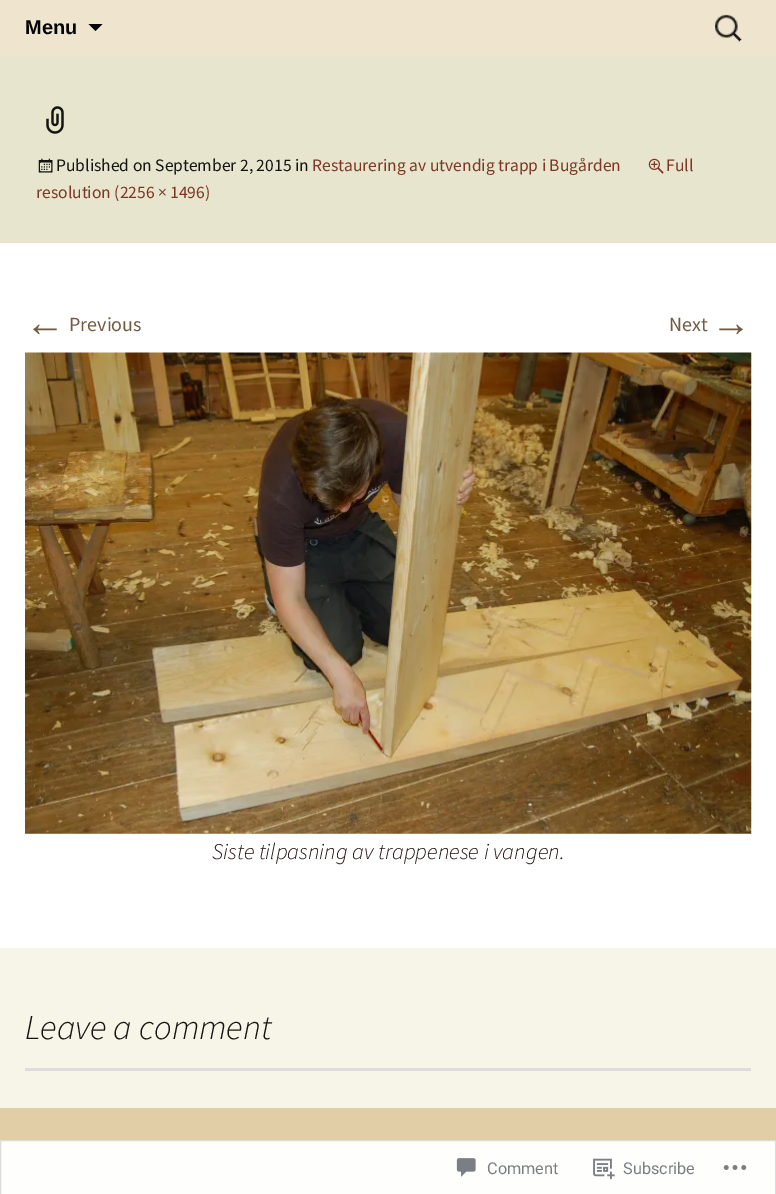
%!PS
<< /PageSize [776 1194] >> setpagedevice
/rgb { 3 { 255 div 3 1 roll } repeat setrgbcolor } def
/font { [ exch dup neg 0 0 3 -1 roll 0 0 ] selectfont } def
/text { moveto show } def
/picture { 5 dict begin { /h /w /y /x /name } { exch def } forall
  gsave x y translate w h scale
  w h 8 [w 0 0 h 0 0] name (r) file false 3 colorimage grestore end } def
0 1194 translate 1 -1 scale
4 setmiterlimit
226 206 166 rgb
0 0 776 1194 rectfill
239 228 206 rgb
0 0 776 56 rectfill
5 5 5 rgb
88.5 24 moveto 14 0 rlineto -7 7 rlineto closepath fill
(img_01.rgb) 715 14 27 28 picture
232 229 206 rgb
0 56 776 187 rectfill
(img_02.rgb) 46 106 18 28 picture
(img_03.rgb) 38 158 15 15 picture
(img_04.rgb) 648 158 16 16 picture
255 255 255 rgb
0 243 776 705 rectfill
(img_05.rgb) 25 352 727 482 picture
247 245 231 rgb
0 948 776 160 rectfill
220 220 222 rgb
25 1068 726 3 rectfill
254 254 253 rgb
0.5 1140.5 moveto 775 0 rlineto 0 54 rlineto -775 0 rlineto closepath gsave fill grestore
220 220 221 rgb
stroke
(img_06.rgb) 456 1158 20 19 picture
(img_07.rgb) 593 1158 22 22 picture
(img_08.rgb) 723 1165 24 5 picture
/LiberationSans-Bold 20 font
5 5 5 rgb
(Menu) 25 34 text
/SourceSansPro-Regular 17.5 font
20 20 18 rgb
(Published on September 2, 2015 in) 56 171 text
124 55 39 rgb
(Restaurering av utvendig trapp i Bugården) 312 171 text
(Full) 666 171 text
(resolution \(2256 × 1496\)) 36 198 text
/LiberationSans-Regular 40 font
115 90 67 rgb
(←) 25 336 text
/SourceSansPro-Regular 20 font
(Previous) 69 331 text
(Next) 669 331 text
/LiberationSans-Regular 40 font
(→) 711 336 text
/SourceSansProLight-LightItalic 22.5 font
34 14 16 rgb
(Siste tilpasning av trappenese i vangen.) 212 859 text
/SourceSansProLight-LightItalic 35 font
20 20 18 rgb
(Leave a comment) 25 1039 text
/Roboto-Regular 16.25 font
122 126 131 rgb
(Comment) 487 1174 text
(Subscribe) 623 1174 text
showpage
